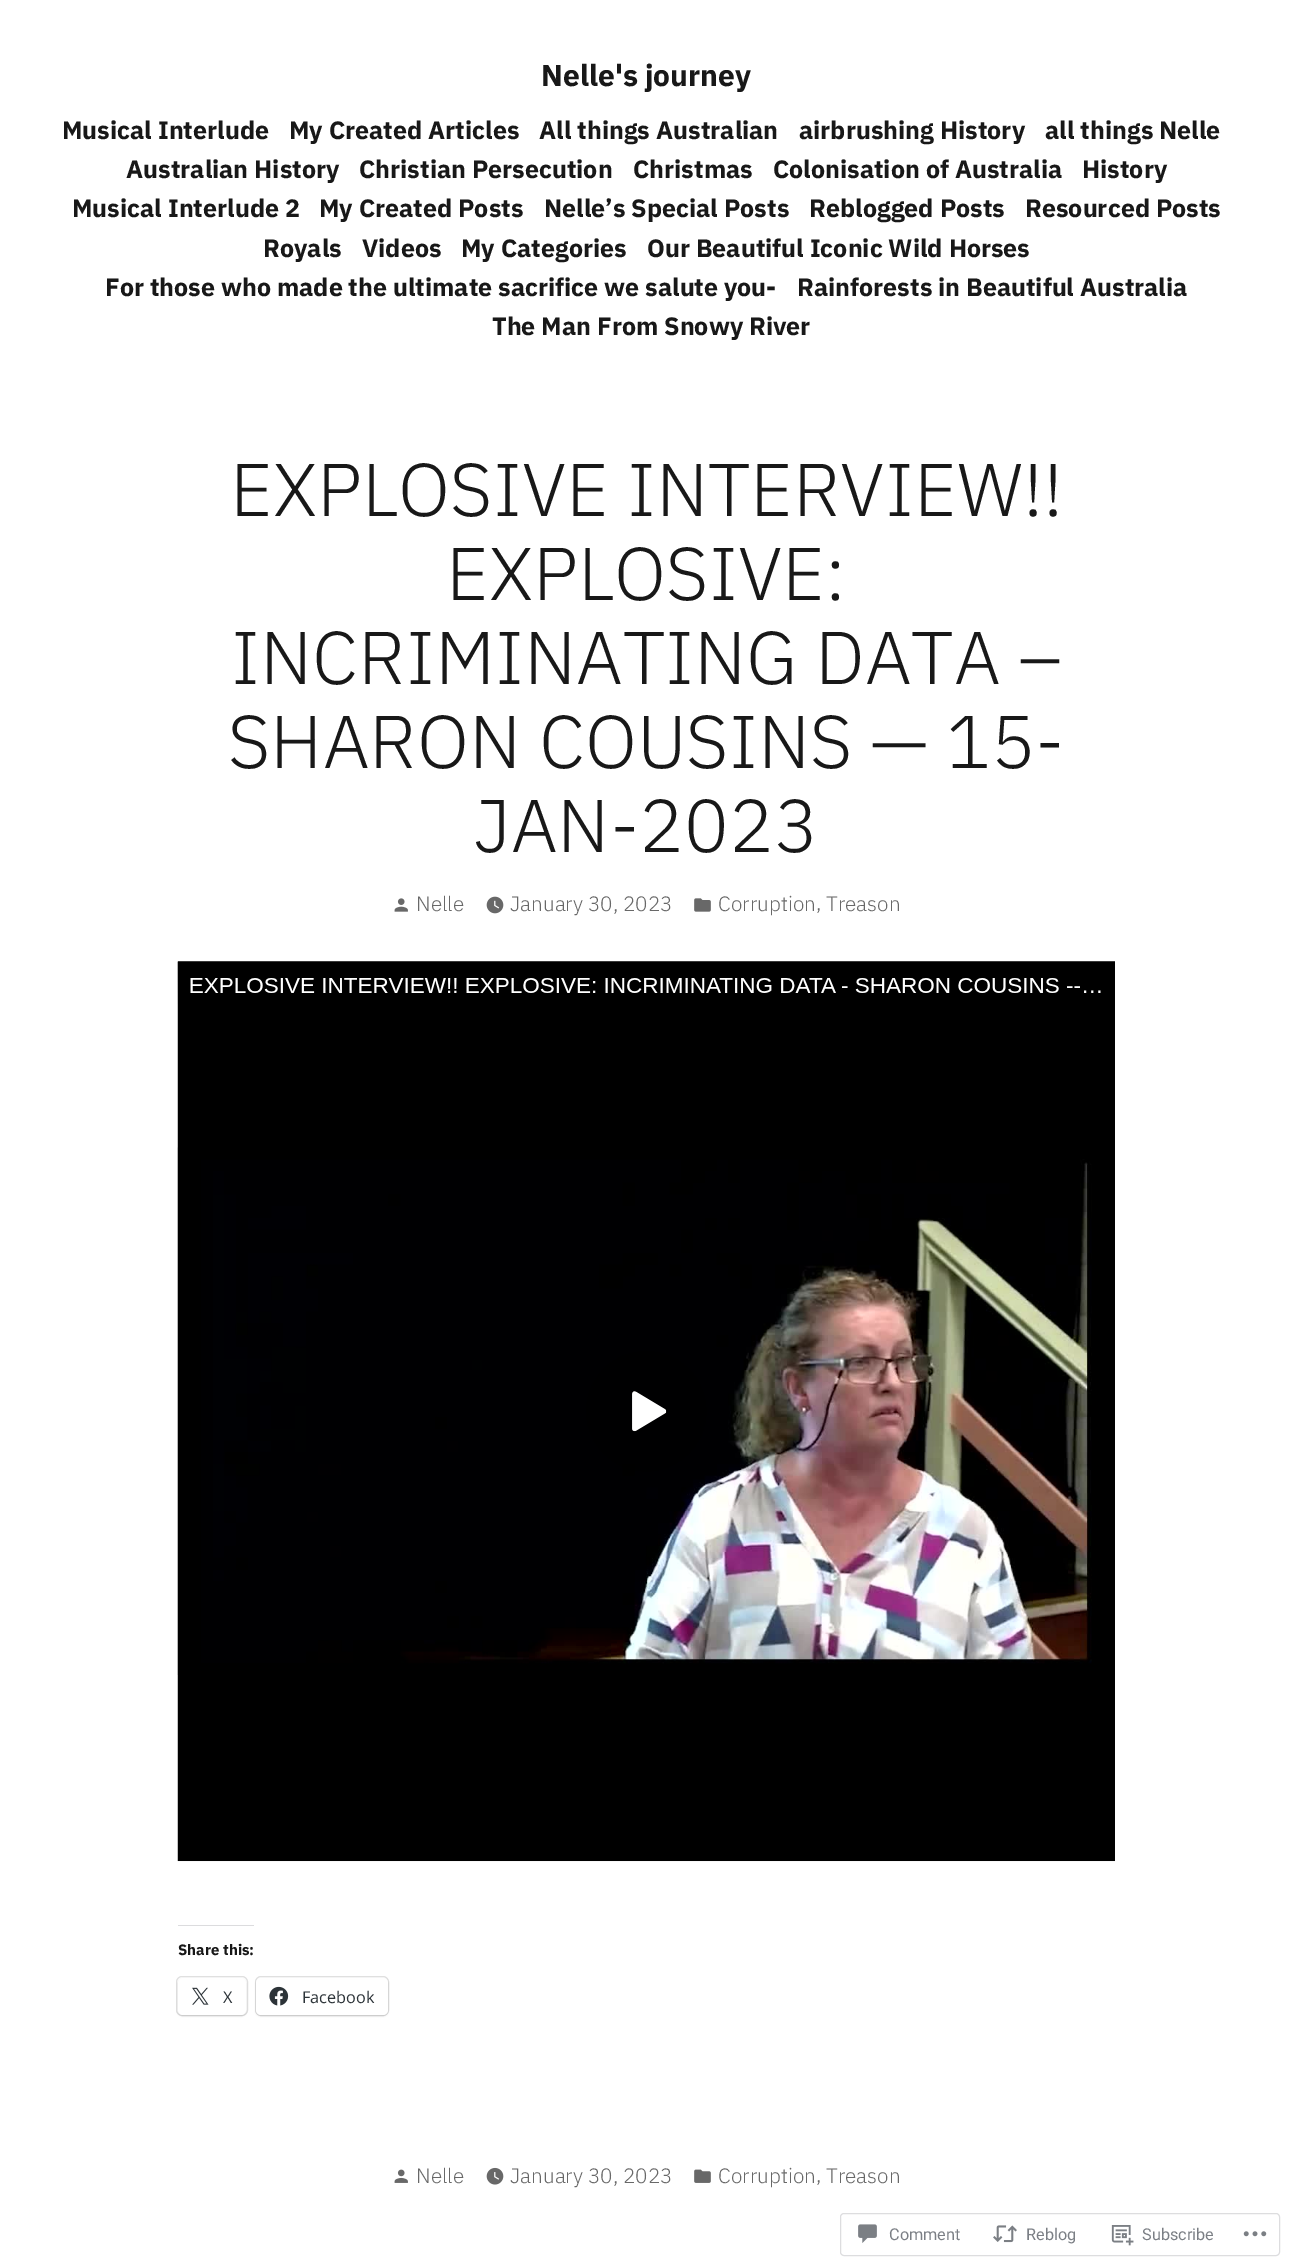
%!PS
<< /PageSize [1292 2268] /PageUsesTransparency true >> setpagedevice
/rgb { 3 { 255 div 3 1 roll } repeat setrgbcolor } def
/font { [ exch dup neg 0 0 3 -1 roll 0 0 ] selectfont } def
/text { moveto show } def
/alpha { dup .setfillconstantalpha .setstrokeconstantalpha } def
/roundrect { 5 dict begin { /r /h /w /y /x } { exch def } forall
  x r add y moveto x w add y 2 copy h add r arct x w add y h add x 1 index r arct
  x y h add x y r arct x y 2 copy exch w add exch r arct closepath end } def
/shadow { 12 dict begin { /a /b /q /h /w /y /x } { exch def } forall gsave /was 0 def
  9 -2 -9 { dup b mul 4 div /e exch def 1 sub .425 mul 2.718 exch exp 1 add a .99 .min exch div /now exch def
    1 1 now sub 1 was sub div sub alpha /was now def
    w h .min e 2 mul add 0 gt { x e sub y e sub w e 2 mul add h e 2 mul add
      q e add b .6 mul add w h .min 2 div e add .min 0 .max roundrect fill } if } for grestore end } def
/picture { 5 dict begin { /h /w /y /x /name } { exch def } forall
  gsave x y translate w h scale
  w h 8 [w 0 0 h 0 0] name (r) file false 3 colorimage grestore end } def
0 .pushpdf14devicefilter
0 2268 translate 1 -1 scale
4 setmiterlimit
255 255 255 rgb
0 0 1292 2268 rectfill
(img_01.rgb) 394 898 14 14 picture
(img_02.rgb) 486 896 18 18 picture
(img_03.rgb) 694 898 17 14 picture
(img_04.rgb) 177 961 938 901 picture
220 220 222 rgb
178 1925 76 1 rectfill
224 224 224 rgb
176.5 1976.5 71 39 5.5 roundrect stroke
0 0 0 rgb
178 1979 68 37 5 1 0.12 shadow
255 255 255 rgb
178 1978 68 37 5 roundrect fill
(img_05.rgb) 192 1987 17 18 picture
224 224 224 rgb
255.5 1976.5 133 39 5.5 roundrect stroke
0 0 0 rgb
256 1979 132 37 5 1 0.12 shadow
255 255 255 rgb
256 1978 132 37 5 roundrect fill
(img_06.rgb) 269 1986 20 20 picture
(img_07.rgb) 394 2169 14 14 picture
(img_08.rgb) 486 2167 18 18 picture
(img_09.rgb) 694 2169 17 14 picture
221 221 223 rgb
840.5 2213.5 439 42 3.5 roundrect stroke
(img_10.rgb) 858 2224 19 19 picture
(img_11.rgb) 993 2225 24 18 picture
(img_12.rgb) 1111 2225 23 21 picture
(img_13.rgb) 1243 2231 24 6 picture
/IBMPlexSans-Bold 30 font
24 24 24 rgb
(Nelle's journey) 541 86 text
/IBMPlexSans-Bold 25 font
(Musical Interlude) 62 139 text
(My Created Articles) 289 139 text
(All things Australian) 539 139 text
(airbrushing History) 799 139 text
(all things Nelle) 1045 139 text
(Australian History) 126 178 text
(Christian Persecution) 359 178 text
(Christmas) 633 178 text
(Colonisation of Australia) 773 178 text
(History) 1082 178 text
(Musical Interlude 2) 72 217 text
(My Created Posts) 319 217 text
(Nelle’s Special Posts) 544 217 text
(Reblogged Posts) 809 217 text
(Resourced Posts) 1025 217 text
(Royals) 263 257 text
(Videos) 362 257 text
(My Categories) 461 257 text
(Our Beautiful Iconic Wild Horses) 647 257 text
(For those who made the ultimate sacrifice we salute you-) 105 296 text
(Rainforests in Beautiful Australia) 797 296 text
(The Man From Snowy River) 492 335 text
/IBMPlexSans-Light 74.6 font
(EXPLOSIVE INTERVIEW!!) 230 516 text
(EXPLOSIVE:) 446 600 text
(INCRIMINATING DATA –) 231 684 text
(SHARON COUSINS — 15-) 228 768 text
(JAN-2023) 474 852 text
/IBMPlexSans-Light 20.75 font
104 104 104 rgb
(Nelle) 416 911 text
(January 30, 2023) 510 911 text
(Corruption) 718 911 text
(,) 816 910 text
(Treason) 826 911 text
/IBMPlexSans-Bold 15 font
24 24 24 rgb
(Share this:) 178 1955 text
/OpenSans-Regular 16.25 font
44 51 56 rgb
(X) 223 2003 text
(Facebook) 302 2003 text
/IBMPlexSans-Light 20.75 font
104 104 104 rgb
(Nelle) 416 2183 text
(January 30, 2023) 510 2183 text
(Corruption) 718 2183 text
(,) 816 2182 text
(Treason) 826 2183 text
/Roboto-Regular 16.25 font
123 127 133 rgb
(Comment) 889 2240 text
(Reblog) 1026 2240 text
(Subscribe) 1142 2240 text
.poppdf14devicefilter showpage
